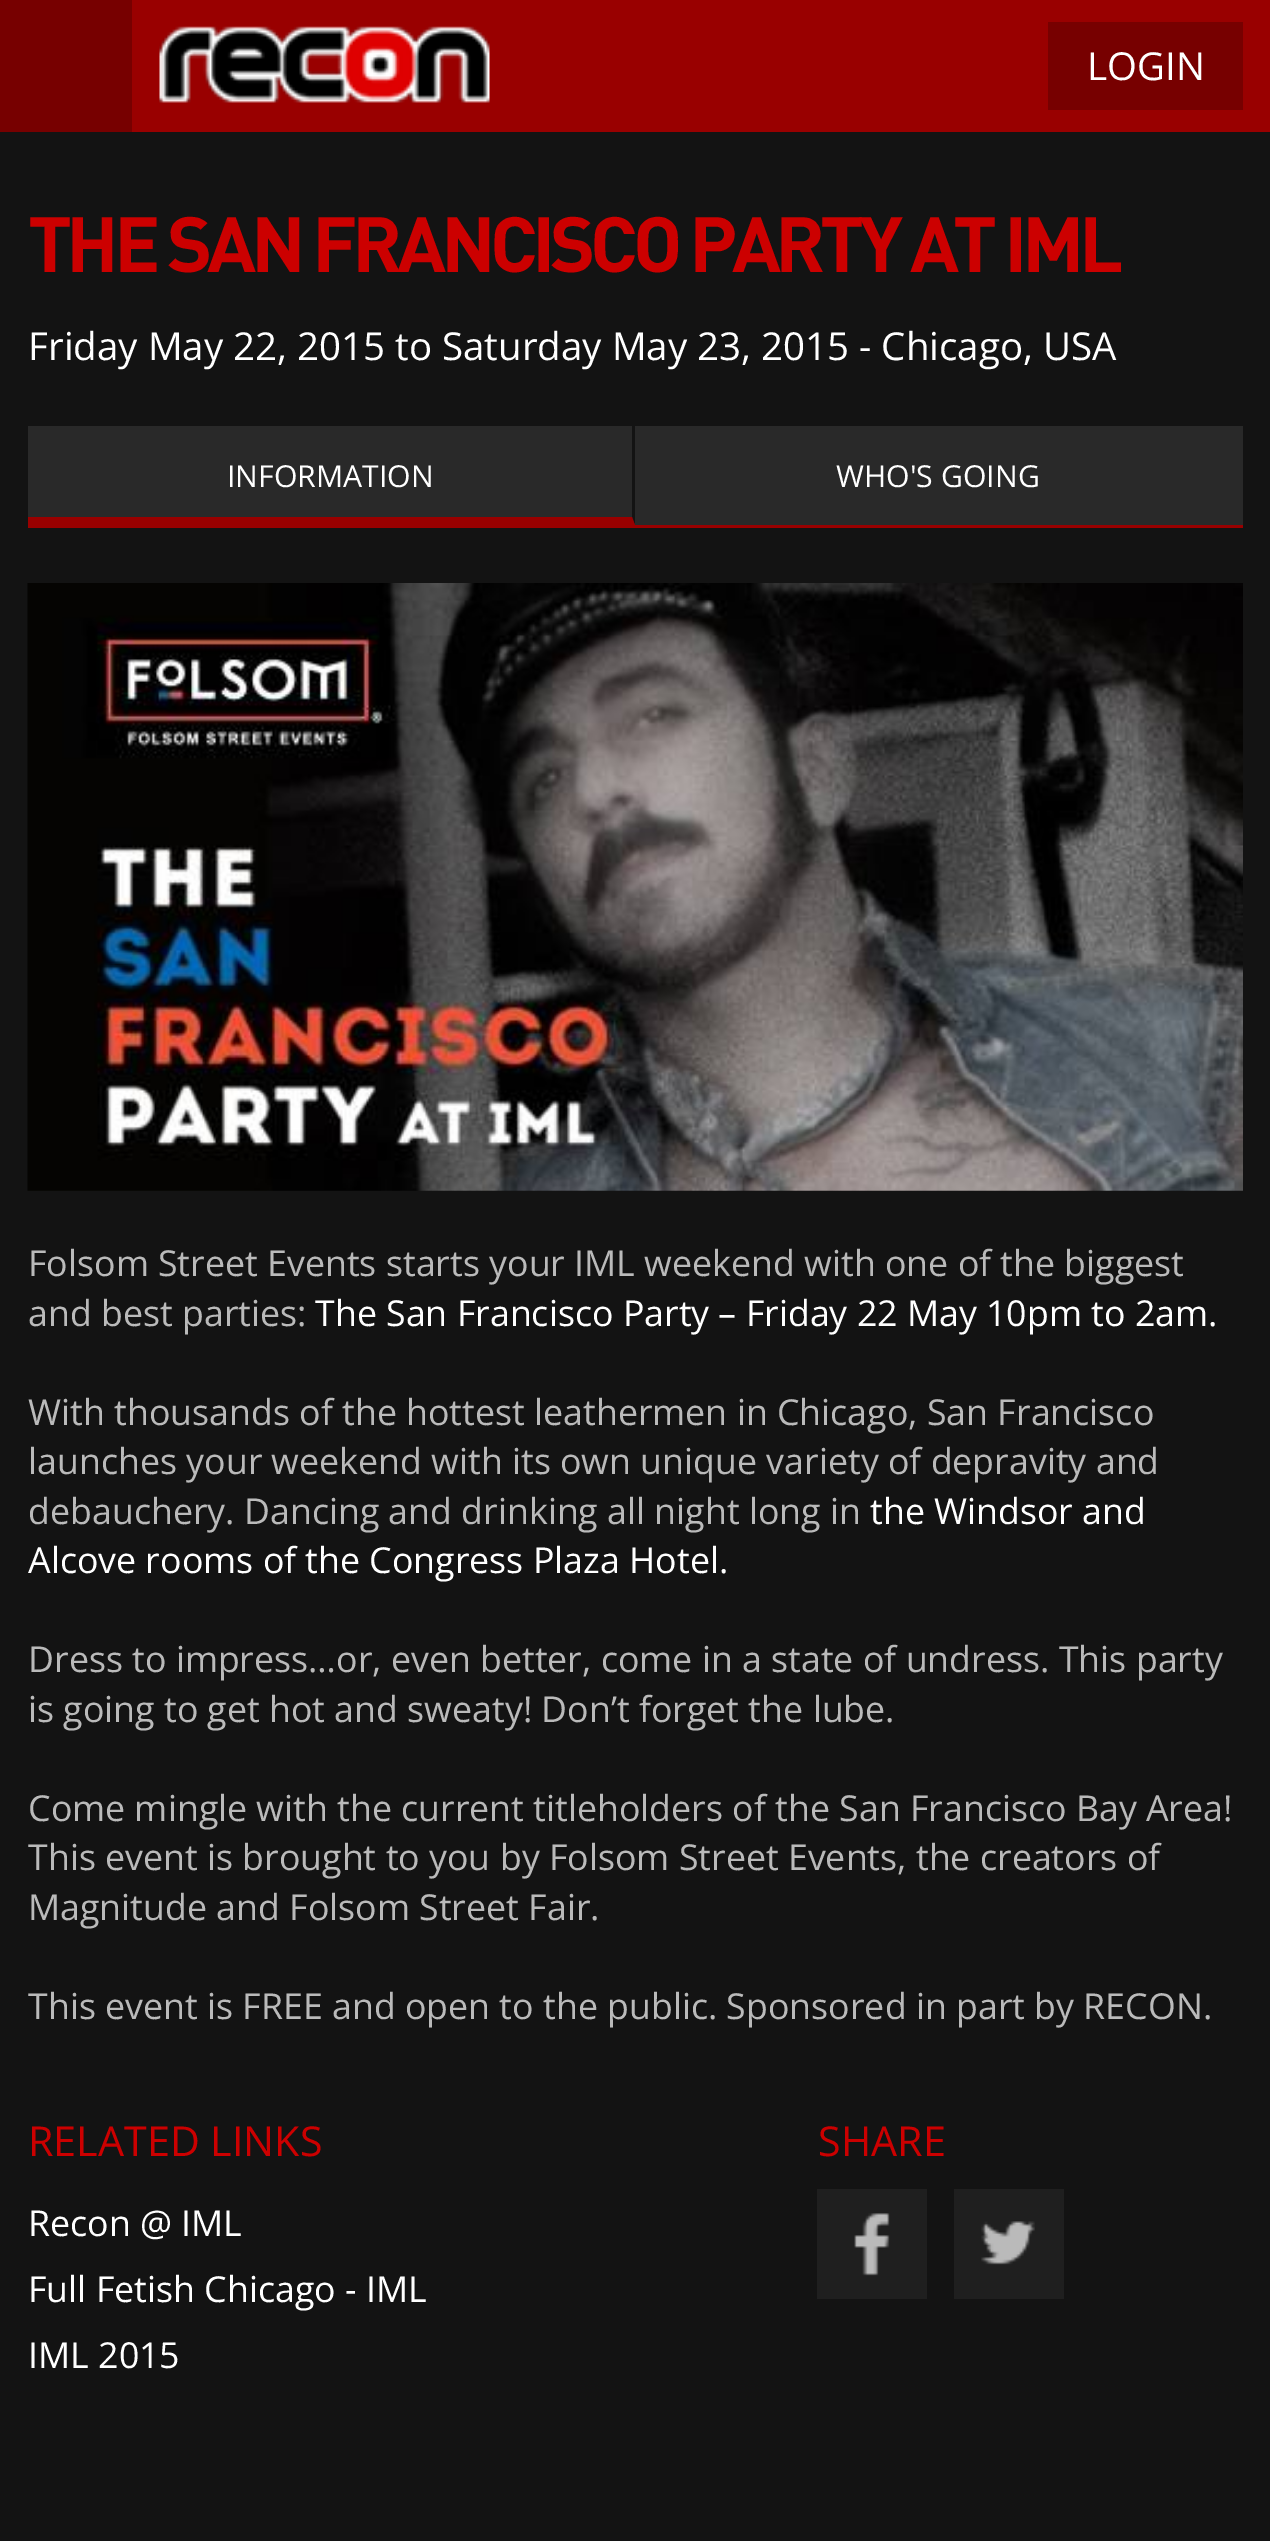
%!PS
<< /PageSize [1270 2541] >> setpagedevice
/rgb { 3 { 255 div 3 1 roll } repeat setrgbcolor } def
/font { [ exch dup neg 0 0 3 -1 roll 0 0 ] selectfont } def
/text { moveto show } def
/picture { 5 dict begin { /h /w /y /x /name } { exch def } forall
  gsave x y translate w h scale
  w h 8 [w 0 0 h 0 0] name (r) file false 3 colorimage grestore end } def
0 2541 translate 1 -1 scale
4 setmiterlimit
19 19 19 rgb
0 0 1270 2541 rectfill
153 0 0 rgb
132 0 1138 132 rectfill
119 0 0 rgb
0 0 132 132 rectfill
(img_01.rgb) 159 26 331 77 picture
1048 22 195 88 rectfill
41 41 41 rgb
28 426 1215 99 rectfill
153 0 0 rgb
28 525 1215 3 rectfill
19 19 19 rgb
635 426 moveto 0 99 rlineto -3 -8 rlineto 0 -91 rlineto closepath fill
153 0 0 rgb
635 525 moveto -607 0 rlineto 0 -8 rlineto 604 0 rlineto closepath fill
(img_02.rgb) 27 583 1216 608 picture
31 31 31 rgb
817 2189 110 110 rectfill
(img_03.rgb) 854 2213 36 63 picture
954 2189 110 110 rectfill
(img_04.rgb) 981 2221 54 44 picture
/OpenSans-Regular 38.5 font
255 255 255 rgb
(LOGIN) 1087 80 text
/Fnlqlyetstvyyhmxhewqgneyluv-Bold 77 font
204 0 0 rgb
28 272 moveto -5.5 0 (THE SAN FRANCISCO PARTY AT IML) ashow
/OpenSans-Regular 38.5 font
255 255 255 rgb
(Friday May 22, 2015 to Saturday May 23, 2015 - Chicago, USA) 28 360 text
/OpenSans-Regular 30.25 font
(INFORMATION) 227 487 text
(WHO'S GOING) 836 487 text
/OpenSans-Regular 35.75 font
186 186 186 rgb
(Folsom Street Events starts your IML weekend with one of the biggest) 28 1276 text
(and best parties:) 28 1326 text
255 255 255 rgb
(The San Francisco Party – Friday 22 May 10pm to 2am.) 315 1326 text
186 186 186 rgb
(With thousands of the hottest leathermen in Chicago, San Francisco) 28 1425 text
(launches your weekend with its own unique variety of depravity and) 28 1474 text
(debauchery. Dancing and drinking all night long in) 28 1524 text
255 255 255 rgb
(the Windsor and) 870 1524 text
(Alcove rooms of the Congress Plaza Hotel.) 28 1573 text
186 186 186 rgb
(Dress to impress…or, even better, come in a state of undress. This party) 28 1672 text
(is going to get hot and sweaty! Don’t forget the lube.) 28 1722 text
(Come mingle with the current titleholders of the San Francisco Bay Area!) 28 1821 text
(This event is brought to you by Folsom Street Events, the creators of) 28 1870 text
(Magnitude and Folsom Street Fair.) 28 1920 text
(This event is FREE and open to the public. Sponsored in part by RECON.) 28 2019 text
/OpenSans-Regular 41.25 font
204 0 0 rgb
(RELATED LINKS) 28 2156 text
/OpenSans-Regular 35.75 font
255 255 255 rgb
(Recon @ IML) 28 2236 text
(Full Fetish Chicago - IML) 28 2302 text
(IML 2015) 28 2368 text
/OpenSans-Regular 41.25 font
204 0 0 rgb
(SHARE) 818 2156 text
showpage
